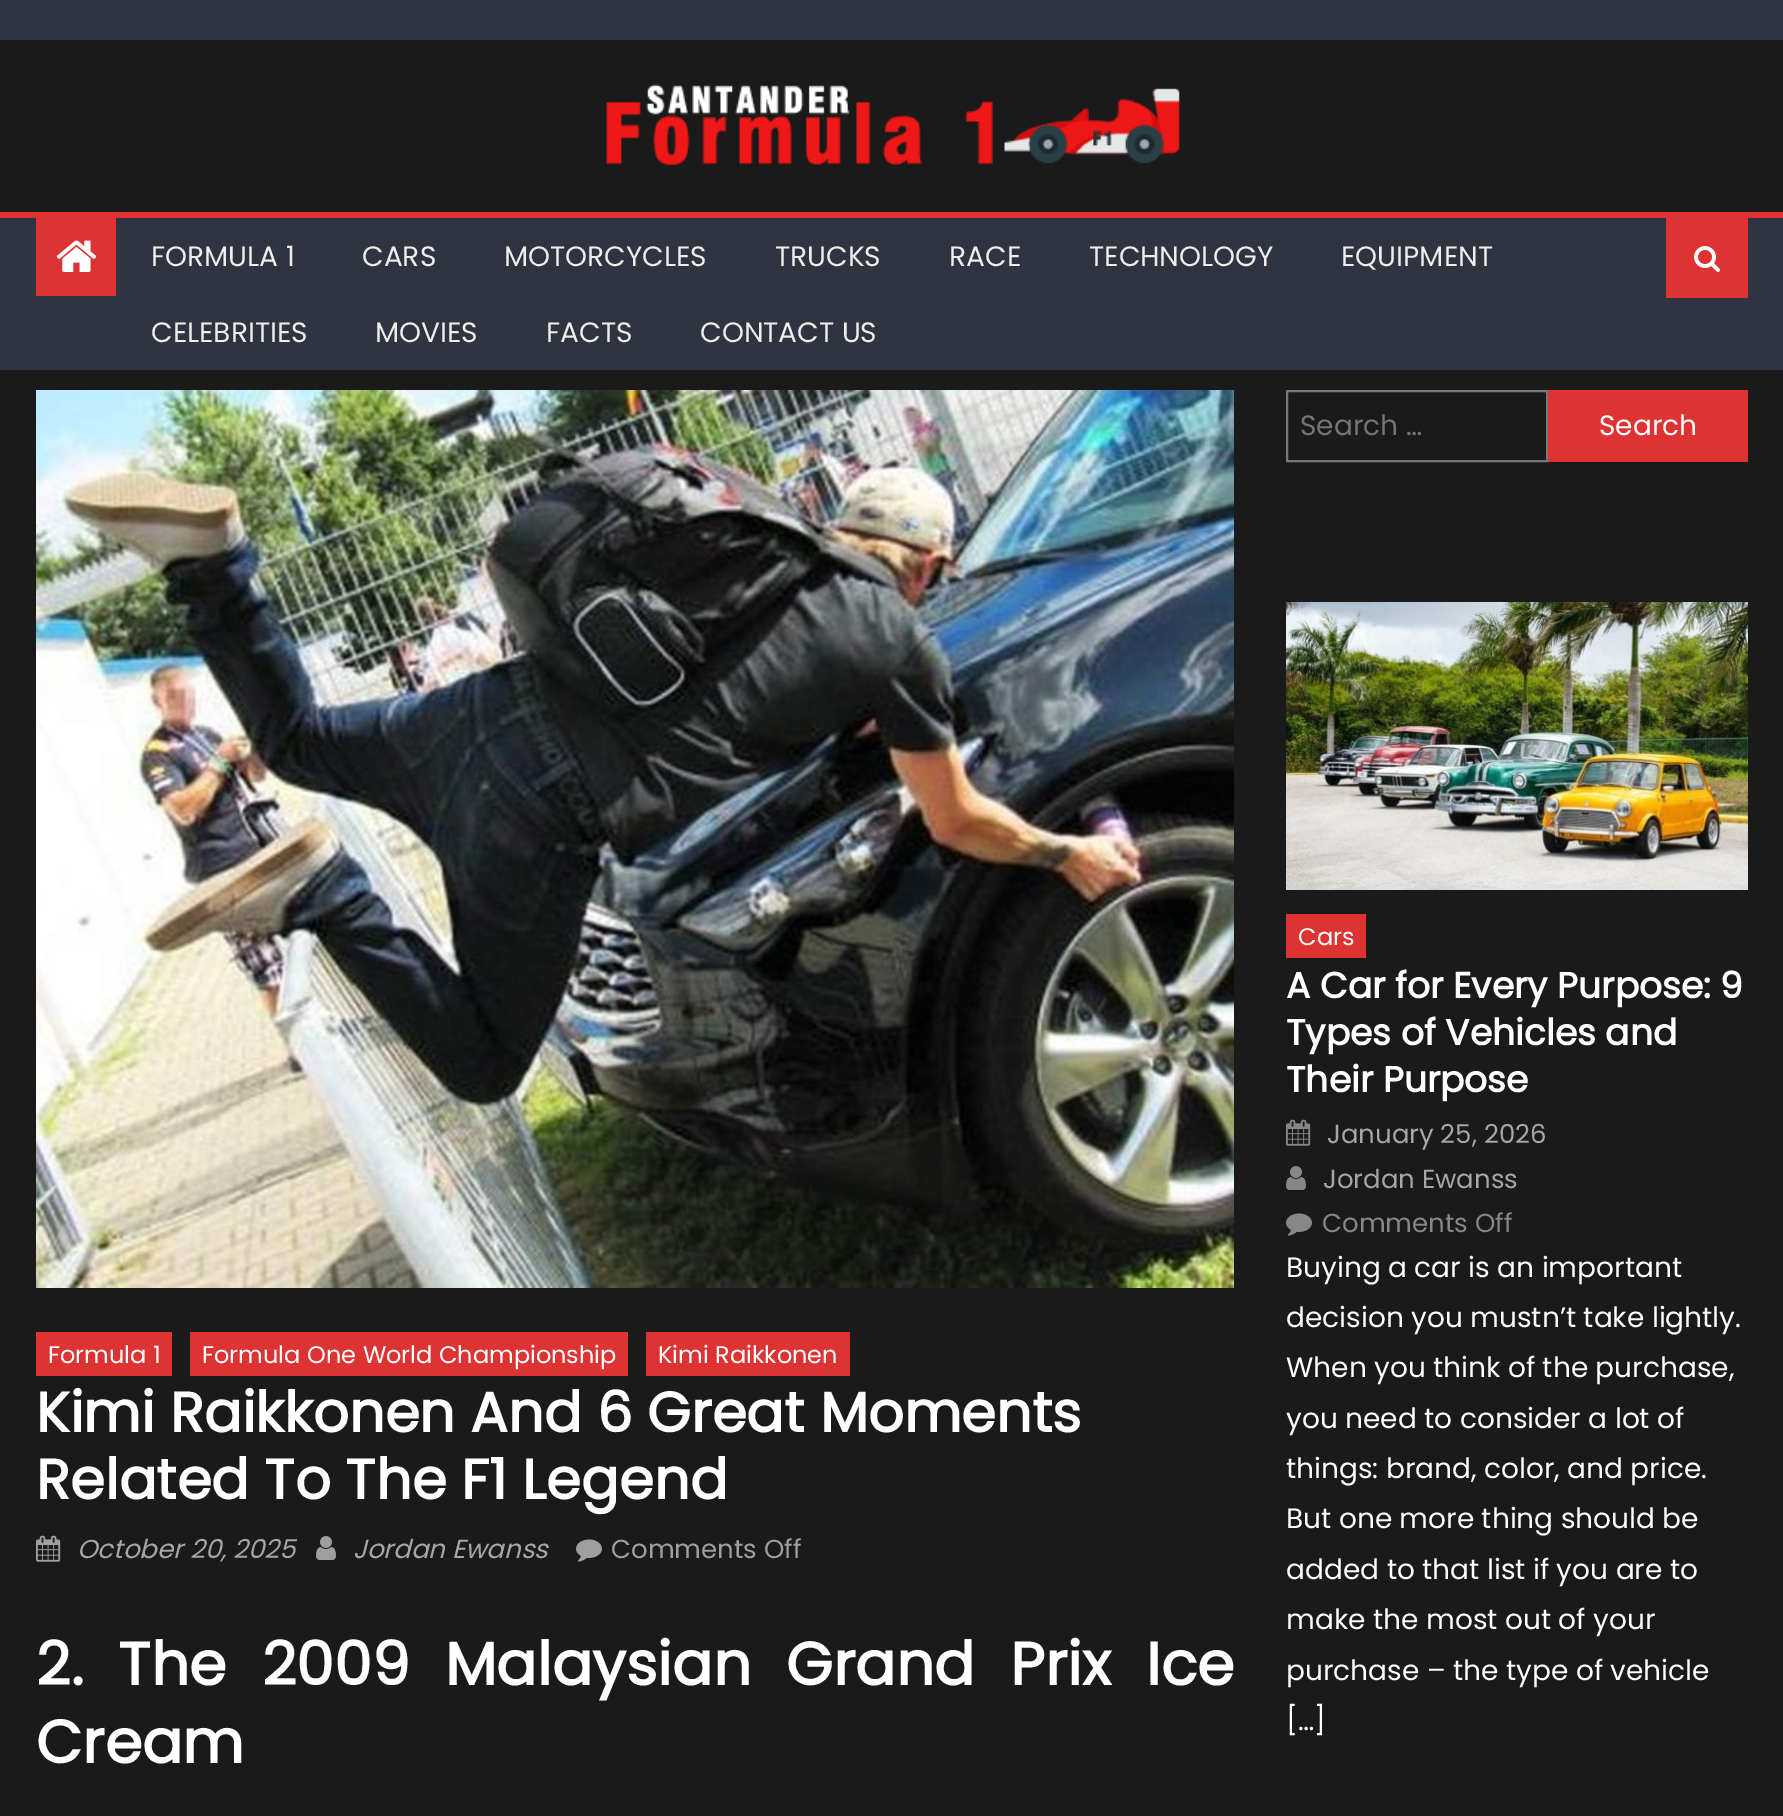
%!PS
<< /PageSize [1783 1816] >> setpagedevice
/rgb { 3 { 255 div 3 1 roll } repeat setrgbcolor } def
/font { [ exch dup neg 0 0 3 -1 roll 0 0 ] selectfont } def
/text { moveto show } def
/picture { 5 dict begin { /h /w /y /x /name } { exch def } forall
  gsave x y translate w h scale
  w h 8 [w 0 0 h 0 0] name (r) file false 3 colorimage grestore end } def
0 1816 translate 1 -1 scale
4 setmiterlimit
26 26 26 rgb
0 0 1783 1816 rectfill
49 53 65 rgb
0 0 1783 40 rectfill
(img_01.rgb) 606 84 574 81 picture
48 52 64 rgb
0 218 1783 152 rectfill
221 51 51 rgb
0 212 1783 6 rectfill
36 218 80 78 rectfill
(img_02.rgb) 56 240 41 32 picture
1666 218 82 80 rectfill
(img_03.rgb) 1694 246 26 26 picture
(img_04.rgb) 36 390 1198 898 picture
36 1332 136 44 rectfill
190 1332 438 44 rectfill
646 1332 204 44 rectfill
(img_05.rgb) 36 1535 25 27 picture
(img_06.rgb) 316 1536 20 24 picture
(img_07.rgb) 576 1539 26 23 picture
119 119 119 rgb
2 setlinewidth
1287 391 260 70 rectstroke
221 51 51 rgb
1548 390 200 72 rectfill
(img_08.rgb) 1286 602 462 288 picture
1286 914 80 44 rectfill
(img_09.rgb) 1286 1119 25 27 picture
(img_10.rgb) 1286 1166 20 24 picture
(img_11.rgb) 1286 1213 26 23 picture
/Poppins-Regular 28 font
238 238 238 rgb
(FORMULA 1) 151 266 text
(CARS) 362 266 text
(MOTORCYCLES) 504 266 text
(TRUCKS) 775 266 text
(RACE) 949 266 text
(TECHNOLOGY) 1089 266 text
(EQUIPMENT) 1341 266 text
(CELEBRITIES) 151 342 text
(MOVIES) 375 342 text
(FACTS) 546 342 text
(CONTACT US) 700 342 text
/Poppins-Regular 24 font
255 255 255 rgb
(Formula 1) 48 1363 text
(Formula One World Championship) 202 1363 text
(Kimi Raikkonen) 658 1363 text
/Poppins-Bold 56 font
(Kimi Raikkonen And 6 Great Moments) 36 1432 text
(Related To The F1 Legend) 36 1499 text
/Poppins-Italic 26 font
166 166 166 rgb
(October 20, 2025) 77 1558 text
(Jordan Ewanss) 353 1558 text
/Poppins-Regular 26 font
159 159 159 rgb
(Comments Off) 611 1558 text
/Poppins-Bold 60 font
255 255 255 rgb
36 1685 moveto 19.25 0 32 (2. The 2009 Malaysian Grand Prix Ice) widthshow
(Cream) 36 1763 text
/Poppins-Regular 28 font
117 117 117 rgb
(Search …) 1300 435 text
255 255 255 rgb
(Search) 1599 435 text
/Poppins-Regular 24 font
(Cars) 1298 945 text
/Poppins-Bold 36 font
(A Car for Every Purpose: 9) 1286 998 text
(Types of Vehicles and) 1286 1045 text
(Their Purpose) 1286 1092 text
/Poppins-Regular 26 font
166 166 166 rgb
(January 25, 2026) 1327 1143 text
(Jordan Ewanss) 1323 1188 text
135 135 135 rgb
(Comments Off) 1322 1232 text
/Poppins-Regular 28 font
255 255 255 rgb
(Buying a car is an important) 1286 1277 text
(decision you mustn’t take lightly.) 1286 1327 text
(When you think of the purchase,) 1286 1377 text
(you need to consider a lot of) 1286 1428 text
(things: brand, color, and price.) 1286 1478 text
(But one more thing should be) 1286 1528 text
(added to that list if you are to) 1286 1579 text
(make the most out of your) 1286 1629 text
(purchase – the type of vehicle) 1286 1680 text
([…]) 1286 1730 text
showpage
